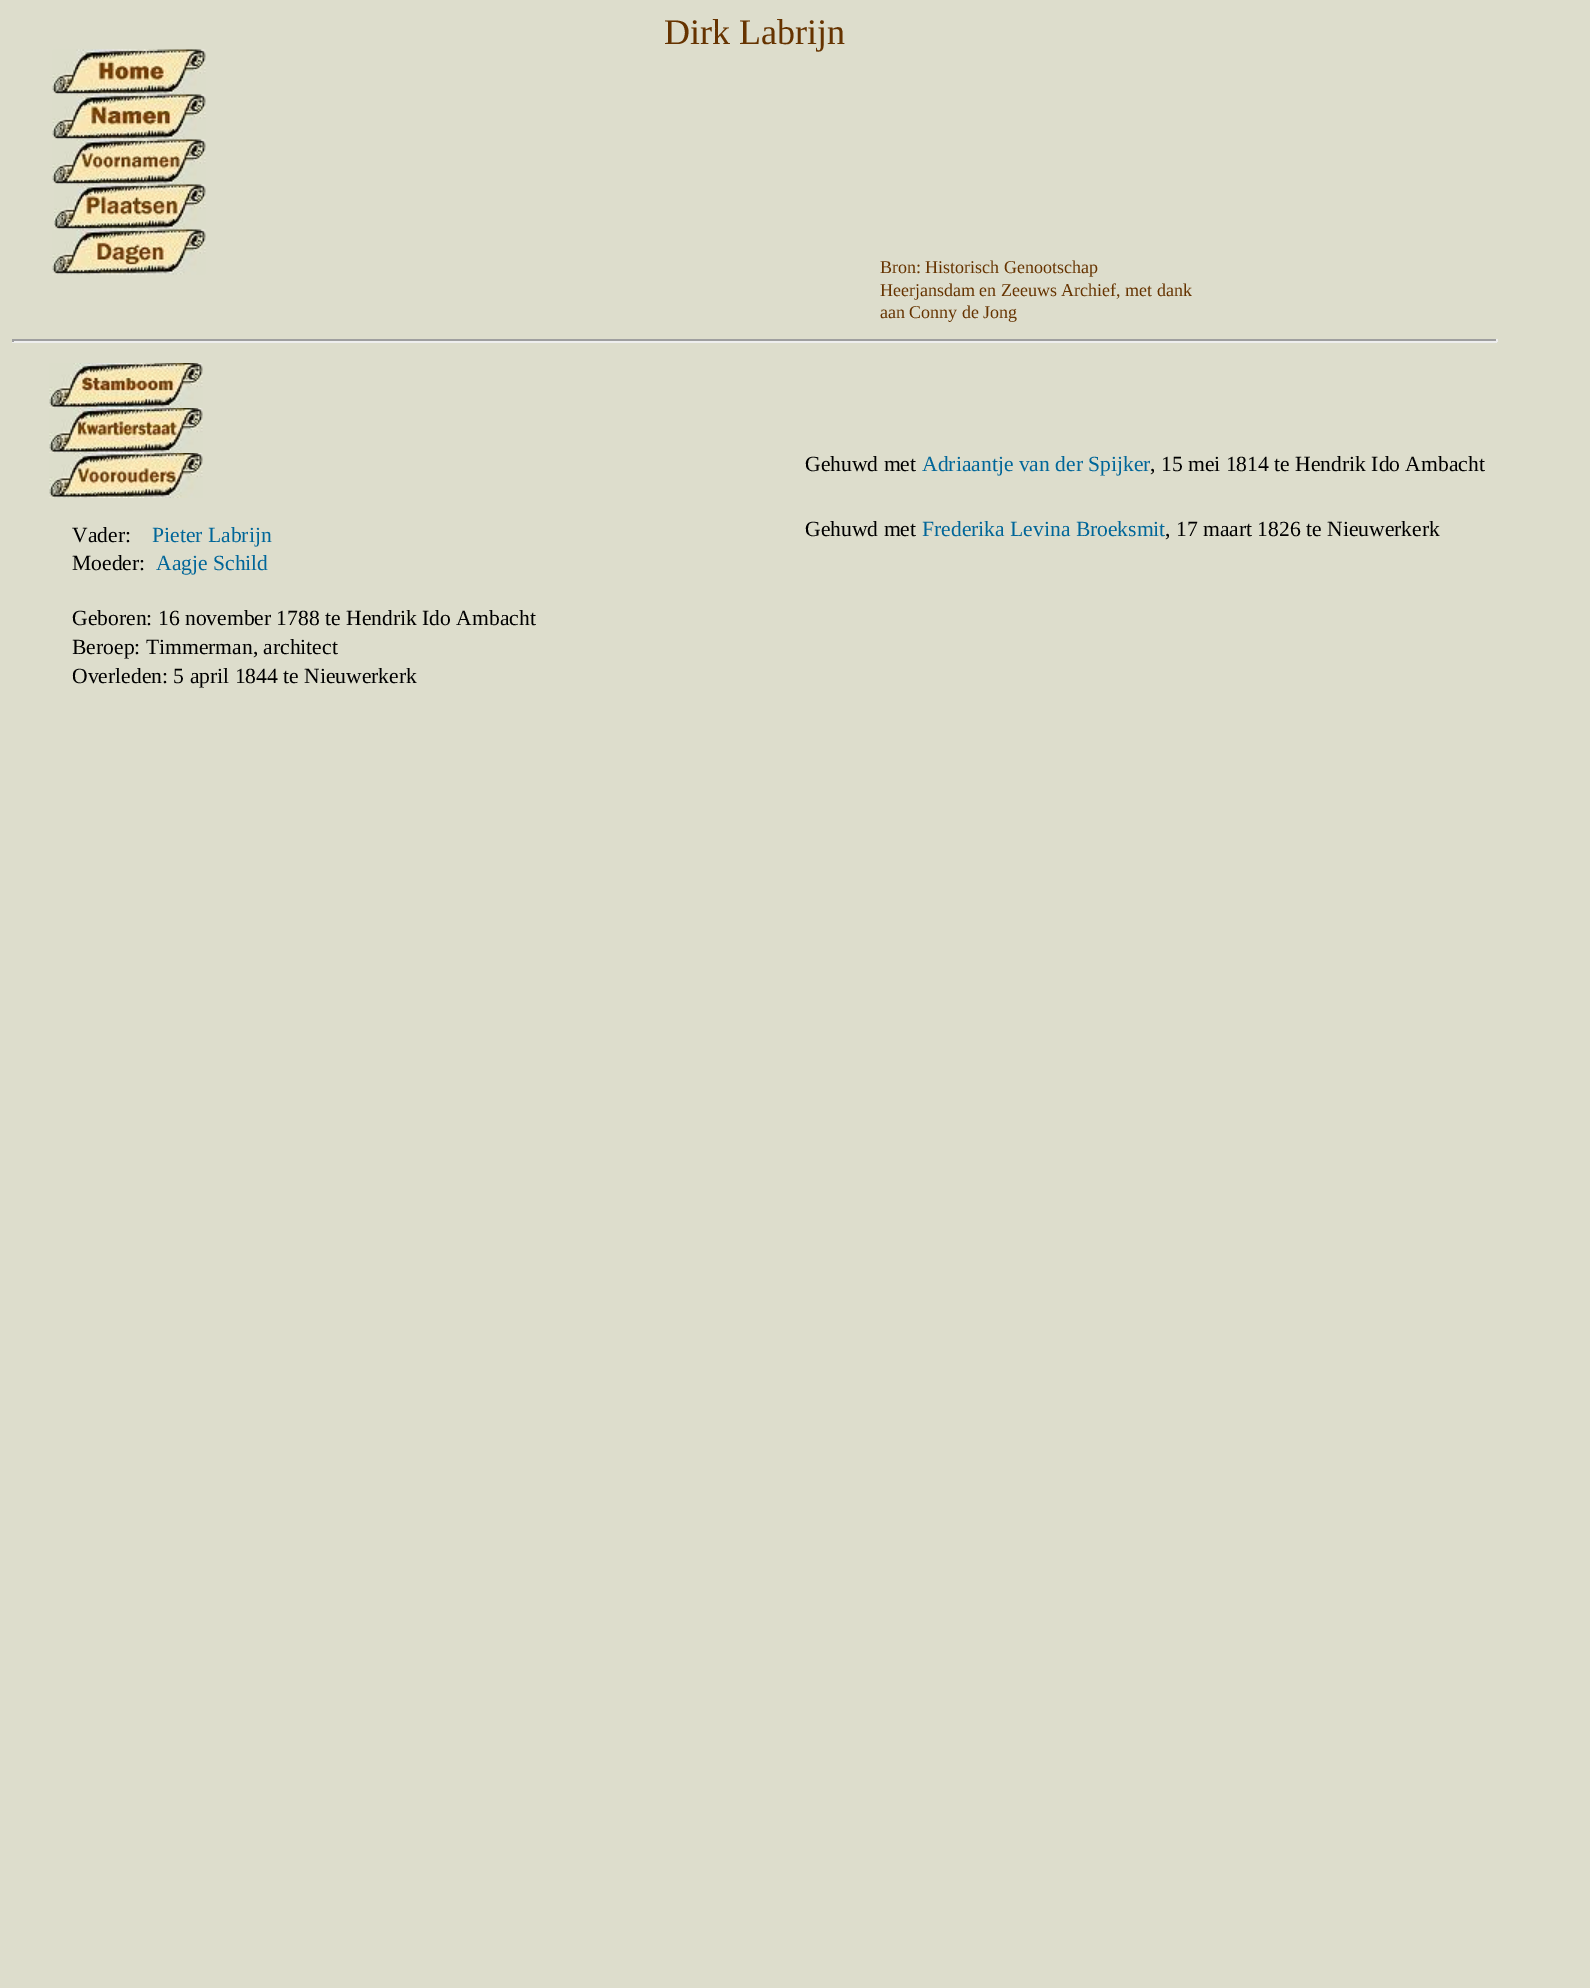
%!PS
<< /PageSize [1590 1988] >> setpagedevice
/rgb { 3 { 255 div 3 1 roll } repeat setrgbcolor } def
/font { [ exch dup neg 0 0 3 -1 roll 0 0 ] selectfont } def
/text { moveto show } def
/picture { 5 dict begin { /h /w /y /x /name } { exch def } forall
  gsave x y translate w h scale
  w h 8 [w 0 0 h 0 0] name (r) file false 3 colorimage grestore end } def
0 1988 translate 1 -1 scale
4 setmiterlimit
221 221 204 rgb
0 0 1590 1988 rectfill
(img_01.rgb) 52 49 154 46 picture
(img_02.rgb) 52 94 154 46 picture
(img_03.rgb) 52 139 154 46 picture
(img_04.rgb) 54 184 152 46 picture
(img_05.rgb) 52 229 154 46 picture
159 159 159 rgb
12 339 1485 2 rectfill
238 238 238 rgb
1496 339 2 3 rectfill
12 341 1485 2 rectfill
159 159 159 rgb
12 339 2 3 rectfill
(img_06.rgb) 49 363 154 45 picture
(img_07.rgb) 49 408 154 45 picture
(img_08.rgb) 49 453 154 45 picture
/LiberationSerif-Regular 36 font
102 51 0 rgb
(Dirk Labrijn) 664 44 text
/LiberationSerif-Regular 18 font
(Bron: Historisch Genootschap) 880 273 text
(Heerjansdam en Zeeuws Archief, met dank) 880 296 text
(aan Conny de Jong) 880 318 text
/LiberationSerif-Regular 21.6 font
0 0 0 rgb
(Gehuwd met) 805 471 text
0 102 153 rgb
(Adriaantje van der Spijker) 922 471 text
0 0 0 rgb
(, 15 mei 1814 te Hendrik Ido Ambacht) 1150 471 text
(Gehuwd met) 805 536 text
0 102 153 rgb
(Frederika Levina Broeksmit) 922 536 text
0 0 0 rgb
(, 17 maart 1826 te Nieuwerkerk) 1165 536 text
(Vader:) 72 542 text
0 102 153 rgb
(Pieter Labrijn) 152 542 text
0 0 0 rgb
(Moeder:) 72 570 text
0 102 153 rgb
(Aagje Schild) 156 570 text
0 0 0 rgb
(Geboren: 16 november 1788 te Hendrik Ido Ambacht) 72 625 text
(Beroep: Timmerman, architect) 72 654 text
(Overleden: 5 april 1844 te Nieuwerkerk) 72 683 text
showpage
